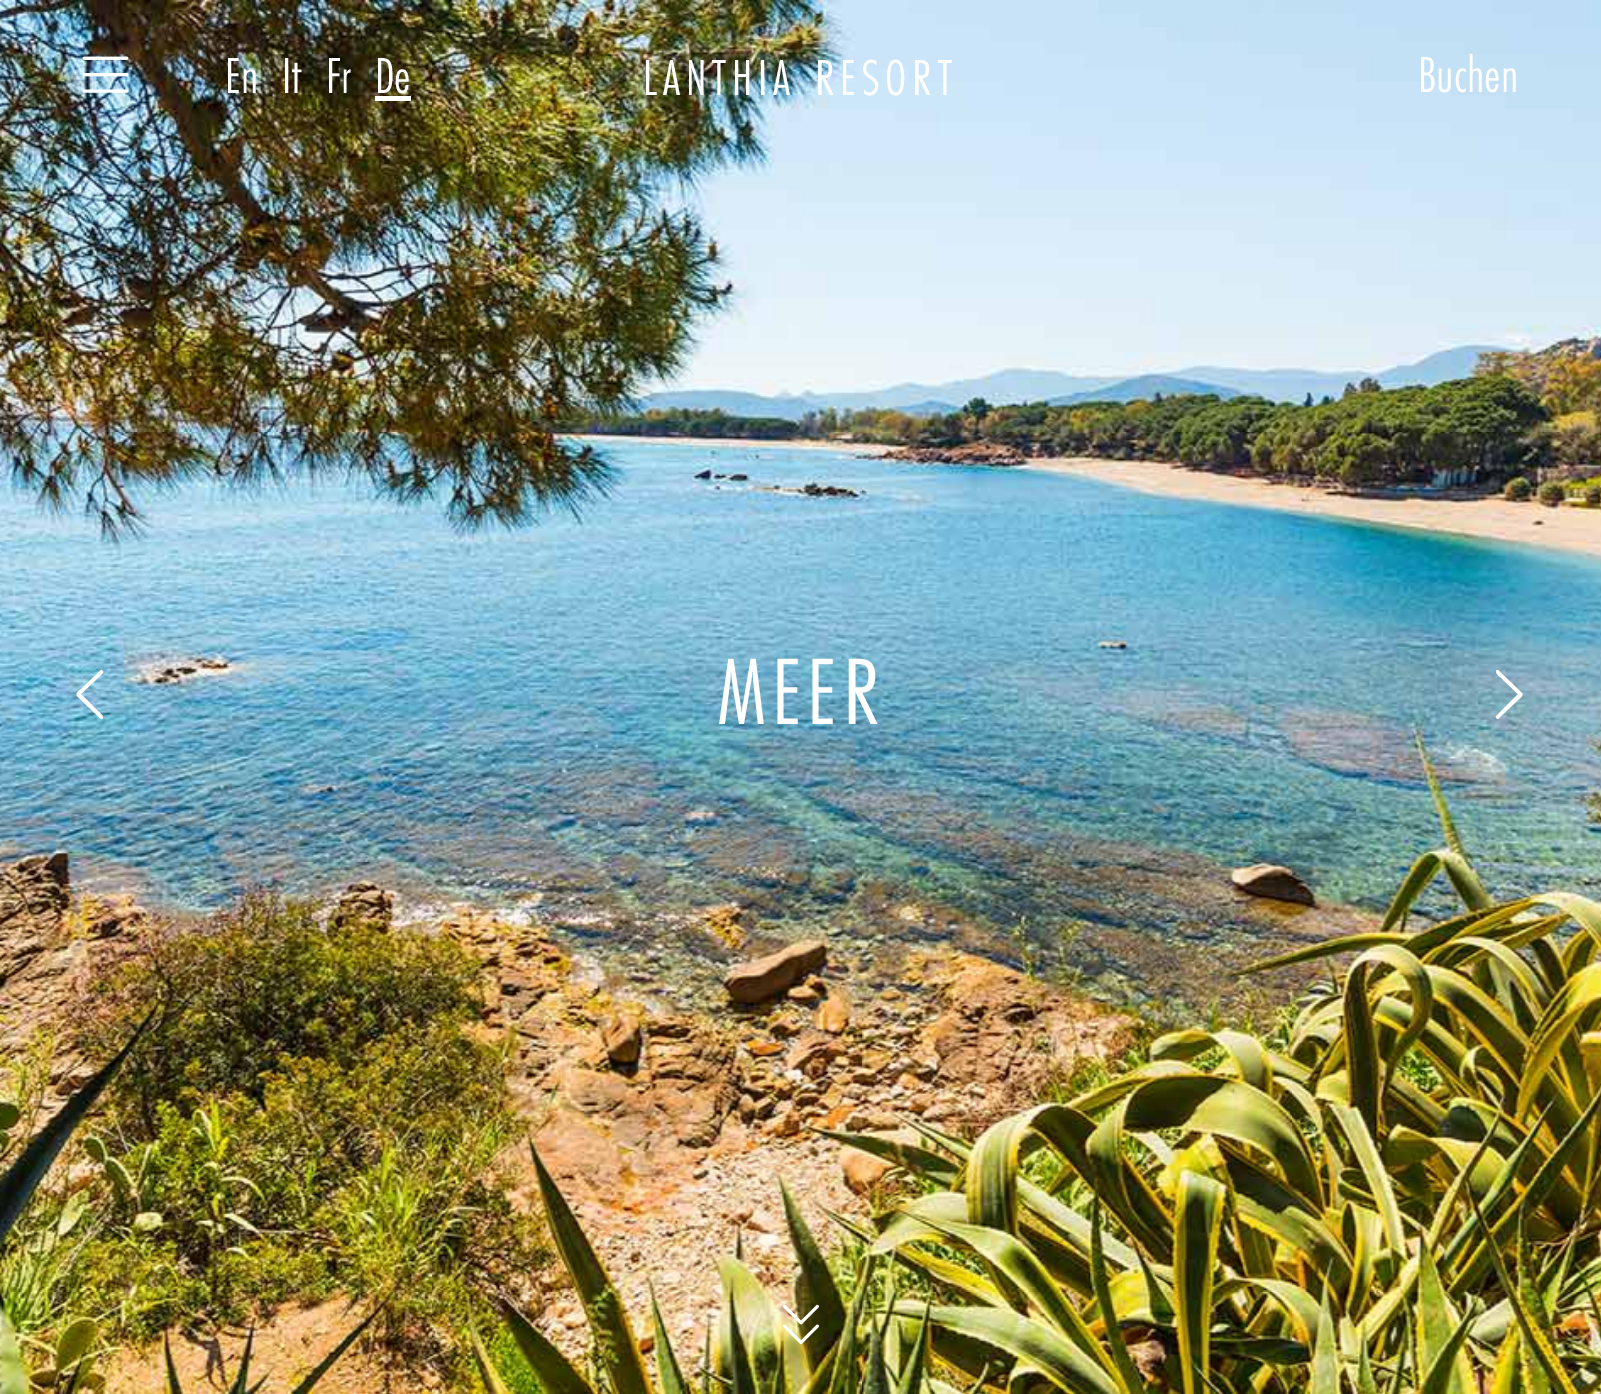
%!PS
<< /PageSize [1601 1394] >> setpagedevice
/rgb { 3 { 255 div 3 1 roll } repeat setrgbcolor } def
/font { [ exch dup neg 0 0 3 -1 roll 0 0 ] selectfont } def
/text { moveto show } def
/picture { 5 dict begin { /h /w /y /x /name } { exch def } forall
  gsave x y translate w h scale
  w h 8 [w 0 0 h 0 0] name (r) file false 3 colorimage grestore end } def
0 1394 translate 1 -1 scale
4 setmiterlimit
255 255 255 rgb
0 0 1601 1394 rectfill
(img_01.rgb) 0 0 1601 1394 picture
77 696 moveto -2 -3 3 -6 4 -7 rcurveto 20 -19 rlineto 1 0 3 2 2 3 rcurveto -22 21 rlineto 18 18 rlineto 1 1 6 5 3 7 rcurveto -1 0 rlineto closepath fill
1522 693 moveto 2 3 -3 6 -4 7 rcurveto -20 19 rlineto -1 0 -3 -2 -2 -3 rcurveto 22 -22 rlineto -18 -17 rlineto -1 -1 -6 -5 -3 -7 rcurveto 1 0 rlineto closepath fill
(img_02.rgb) 783 1304 36 41 picture
(img_03.rgb) 82 56 47 37 picture
375 96 36 5 rectfill
/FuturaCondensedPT-Regular 52.5 font
(En) 225 93 text
(It) 282 93 text
(Fr) 326 93 text
(De) 375 93 text
643 95 moveto 6 0 (LANTHIA RESORT) ashow
/FuturaCondensedPT-Regular 98 font
717 724 moveto 6 0 (MEER) ashow
/FuturaCondensedPT-Regular 52.5 font
(Buchen) 1418 92 text
showpage
